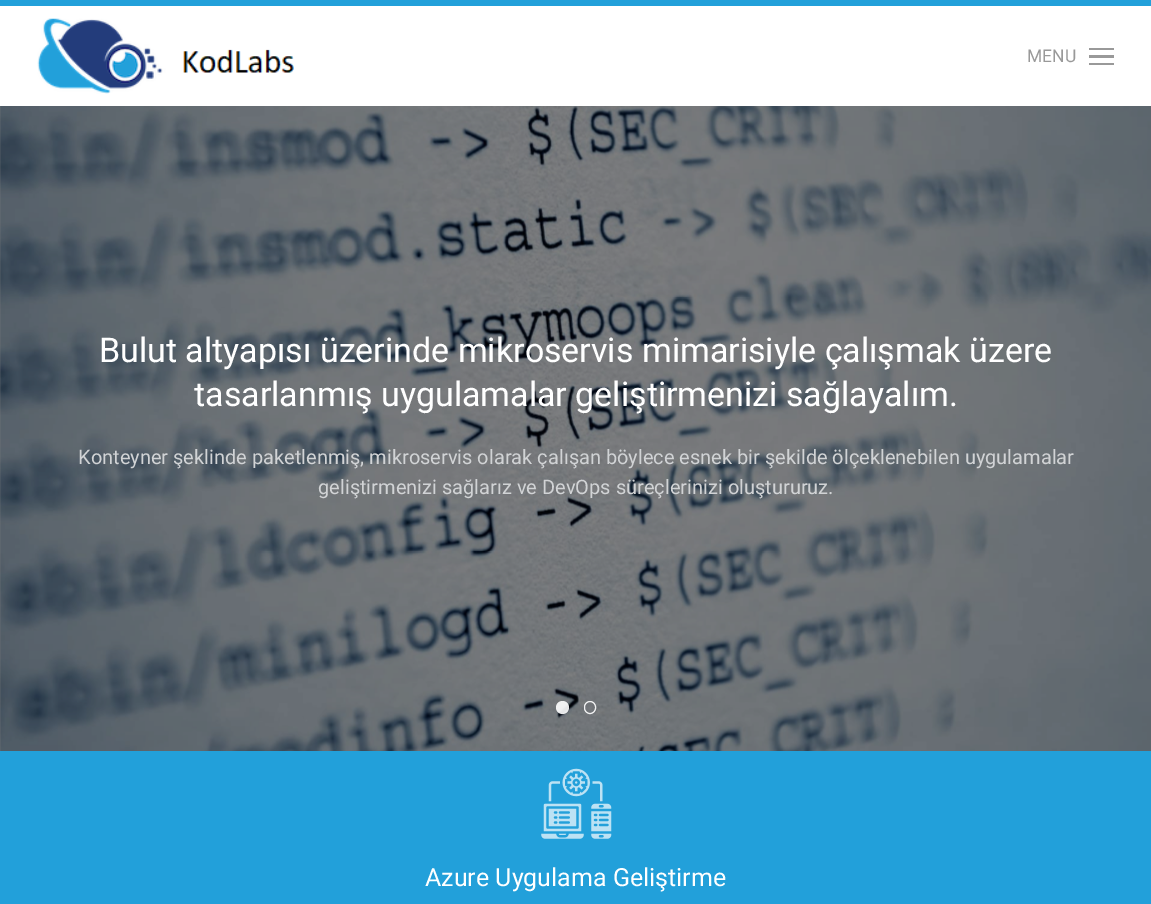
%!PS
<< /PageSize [1151 904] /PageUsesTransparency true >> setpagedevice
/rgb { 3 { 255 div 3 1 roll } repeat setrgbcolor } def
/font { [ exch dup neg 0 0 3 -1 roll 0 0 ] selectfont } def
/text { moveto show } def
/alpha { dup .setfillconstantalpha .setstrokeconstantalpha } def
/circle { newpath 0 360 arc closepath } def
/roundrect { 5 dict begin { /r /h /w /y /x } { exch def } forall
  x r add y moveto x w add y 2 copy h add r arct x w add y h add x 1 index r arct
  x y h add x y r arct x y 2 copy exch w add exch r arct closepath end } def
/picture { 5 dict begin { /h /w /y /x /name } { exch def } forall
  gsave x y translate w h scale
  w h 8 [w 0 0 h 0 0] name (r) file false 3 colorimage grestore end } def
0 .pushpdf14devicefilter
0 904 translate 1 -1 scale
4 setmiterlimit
255 255 255 rgb
0 0 1151 904 rectfill
34 160 218 rgb
0 0 1151 6 rectfill
(img_01.rgb) 37 18 257 76 picture
153 153 153 rgb
1089 48 25 2 rectfill
1089 55 25 3 rectfill
1089 63 25 2 rectfill
(img_02.rgb) 0 106 1151 645 picture
0.9 alpha
255 255 255 rgb
562.5 707.5 6.5 circle fill
584.5 701.5 11 12 5.5 roundrect stroke
1 alpha
34 160 218 rgb
0 751 1151 153 rectfill
(img_03.rgb) 541 768 71 71 picture
/Roboto-Regular 17.5 font
153 153 153 rgb
(MENU) 1027 62 text
/Roboto-Regular 34 font
255 255 255 rgb
(Bulut altyapısı üzerinde mikroservis mimarisiyle çalışmak üzere) 99 362 text
(tasarlanmış uygulamalar geliştirmenizi sağlayalım.) 194 406 text
/Roboto-Regular 20 font
209 211 213 rgb
(Konteyner şeklinde paketlenmiş, mikroservis olarak çalışan böylece esnek bir şekilde ölçeklenebilen uygulamalar) 78 464 text
(geliştirmenizi sağlarız ve DevOps süreçlerinizi oluştururuz.) 318 494 text
/Roboto-Regular 25 font
255 255 255 rgb
(Azure Uygulama Geliştirme) 425 886 text
.poppdf14devicefilter showpage
